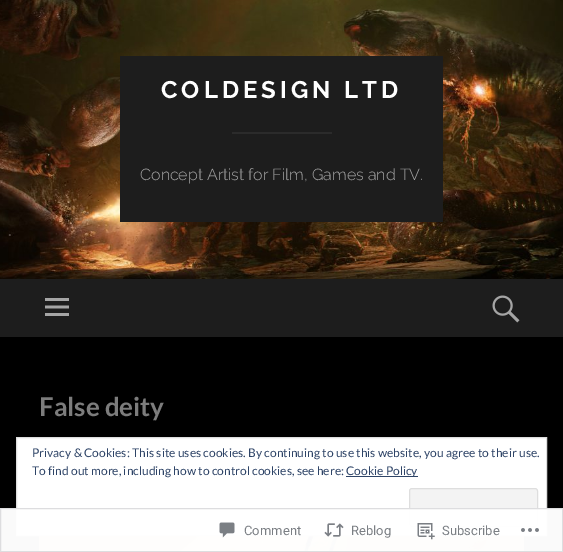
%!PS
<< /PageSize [563 552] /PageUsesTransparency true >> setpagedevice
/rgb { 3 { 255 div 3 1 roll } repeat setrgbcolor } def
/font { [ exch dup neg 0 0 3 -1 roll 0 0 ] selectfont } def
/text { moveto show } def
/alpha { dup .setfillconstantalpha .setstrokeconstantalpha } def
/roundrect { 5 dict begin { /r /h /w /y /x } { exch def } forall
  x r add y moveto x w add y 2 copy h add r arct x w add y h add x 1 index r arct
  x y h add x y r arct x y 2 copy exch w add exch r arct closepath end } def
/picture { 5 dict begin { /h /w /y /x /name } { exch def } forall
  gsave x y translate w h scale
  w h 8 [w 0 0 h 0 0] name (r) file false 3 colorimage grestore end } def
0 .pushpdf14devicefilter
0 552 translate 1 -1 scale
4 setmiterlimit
0 0 0 rgb
0 0 563 552 rectfill
(img_01.rgb) 0 0 563 279 picture
29 29 29 rgb
120 56 323 166 rectfill
43 43 43 rgb
232 132 100 2 rectfill
29 29 29 rgb
0 279 563 58 rectfill
(img_02.rgb) 45 298 24 18 picture
(img_03.rgb) 492 295 28 28 picture
(img_04.rgb) 39 536 485 16 picture
255 255 255 rgb
16.5 437.5 moveto 530 0 rlineto 0 98 rlineto -530 0 rlineto closepath gsave fill grestore
222 222 222 rgb
stroke
46 68 103 rgb
346 476 72 1 rectfill
243 243 243 rgb
409.5 488.5 128 38 2.5 roundrect gsave fill grestore
222 222 222 rgb
stroke
0.98 alpha
255 255 255 rgb
0 508 563 44 rectfill
220 220 222 rgb
0.5 508.5 562 43 rectstroke
1 alpha
(img_05.rgb) 219 522 16 16 picture
(img_06.rgb) 324 523 20 14 picture
(img_07.rgb) 417 523 18 17 picture
(img_08.rgb) 521 528 18 4 picture
/Raleway-Bold 24 font
255 255 255 rgb
161 98 moveto 4 0 (COLDESIGN LTD) ashow
/Raleway-Light 16 font
165 165 165 rgb
(Concept Artist for Film, Games and TV.) 140 180 text
/Lato-Bold 26 font
124 124 124 rgb
(False deity) 39 416 text
/Lato-Regular 12 font
46 68 103 rgb
(Privacy & Cookies: This site uses cookies. By continuing to use this website, you agree to their use.) 32 457 text
(To find out more, including how to control cookies, see here:) 32 475 text
(Cookie Policy) 346 475 text
/Roboto-Regular 13 font
123 127 132 rgb
(Comment) 244 535 text
(Reblog) 351 535 text
(Subscribe) 442 535 text
.poppdf14devicefilter showpage
